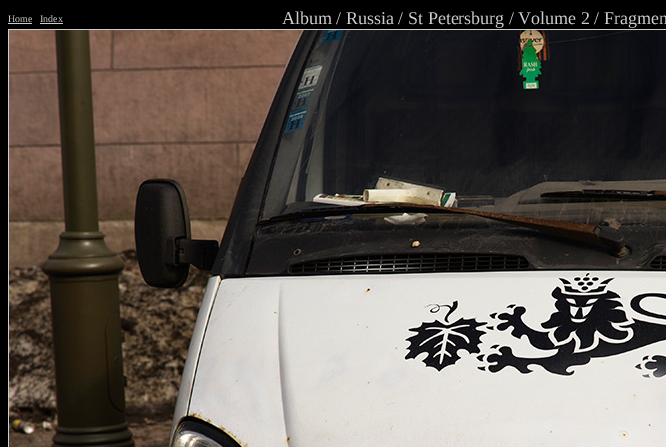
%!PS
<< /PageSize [666 447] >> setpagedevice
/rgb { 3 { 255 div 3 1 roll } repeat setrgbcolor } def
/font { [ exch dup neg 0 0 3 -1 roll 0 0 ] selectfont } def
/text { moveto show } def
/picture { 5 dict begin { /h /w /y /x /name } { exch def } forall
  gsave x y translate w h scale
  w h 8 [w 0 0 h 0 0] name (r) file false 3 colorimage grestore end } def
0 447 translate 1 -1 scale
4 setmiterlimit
0 0 0 rgb
0 0 666 447 rectfill
204 204 204 rgb
8 23 24 1 rectfill
40 23 23 1 rectfill
8.5 29.5 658 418 rectstroke
(img_01.rgb) 9 30 657 417 picture
/LiberationSerif-Regular 10 font
(Home) 8 22 text
(Index) 40 22 text
/LiberationSerif-Regular 18 font
(Album / Russia / St Petersburg / Volume 2 / Fragmen) 282 24 text
showpage
